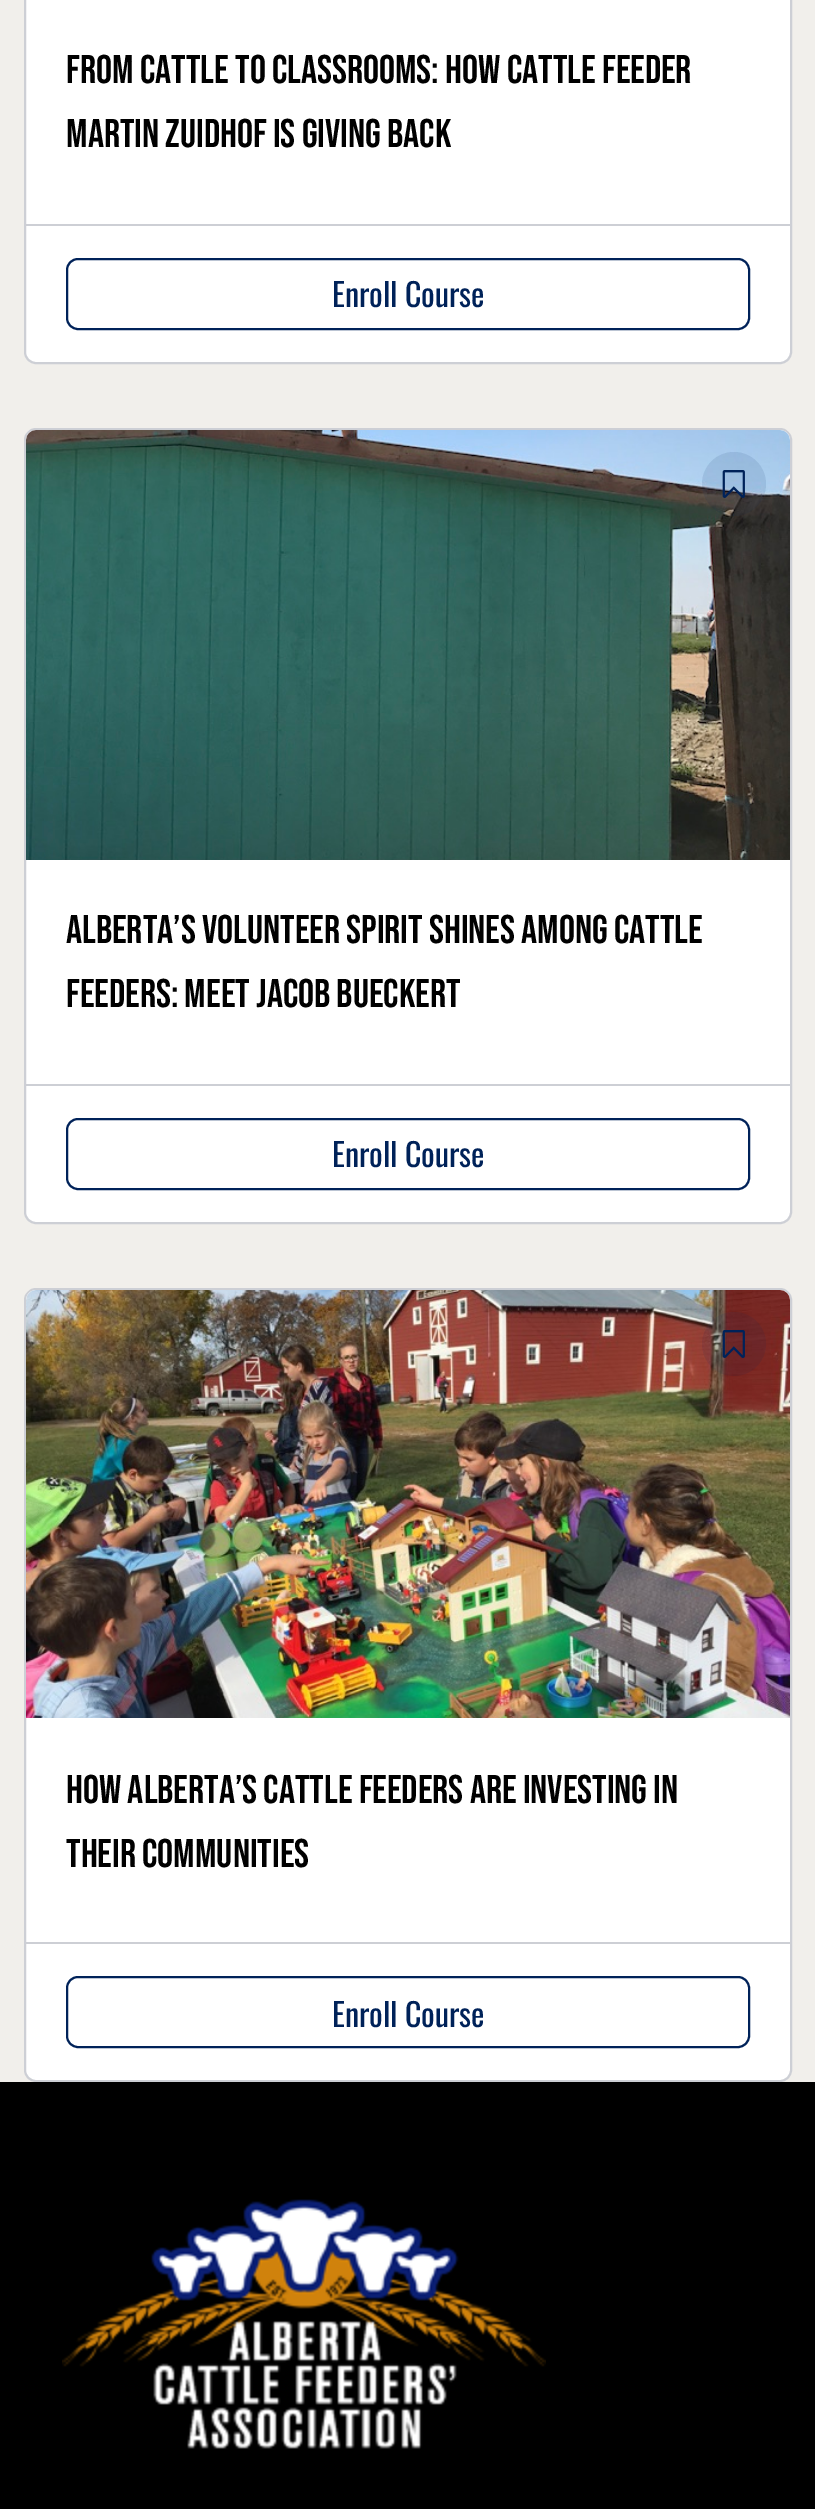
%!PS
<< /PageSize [815 2509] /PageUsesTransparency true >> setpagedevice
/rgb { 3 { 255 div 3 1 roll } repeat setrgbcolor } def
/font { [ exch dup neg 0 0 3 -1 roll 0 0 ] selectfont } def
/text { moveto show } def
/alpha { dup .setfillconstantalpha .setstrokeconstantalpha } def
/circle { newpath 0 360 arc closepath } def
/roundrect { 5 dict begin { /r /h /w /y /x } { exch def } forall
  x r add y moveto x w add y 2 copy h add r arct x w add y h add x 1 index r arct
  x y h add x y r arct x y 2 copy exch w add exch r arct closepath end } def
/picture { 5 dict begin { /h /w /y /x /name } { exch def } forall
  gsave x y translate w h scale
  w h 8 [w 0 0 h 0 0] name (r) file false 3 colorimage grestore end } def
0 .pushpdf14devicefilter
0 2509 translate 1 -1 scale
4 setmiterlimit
241 239 235 rgb
0 0 815 2509 rectfill
255 255 255 rgb
25 -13 766 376 11 roundrect gsave fill grestore
205 207 213 rgb
2 setlinewidth
stroke
26 224 764 2 rectfill
0 34 89 rgb
67 259 682 70 11 roundrect stroke
255 255 255 rgb
25 429 766 794 11 roundrect gsave fill grestore
205 207 213 rgb
stroke
(img_01.rgb) 26 430 764 430 picture
0.1 alpha
0 34 89 rgb
734 484 32 circle fill
1 alpha
(img_02.rgb) 722 470 23 28 picture
205 207 213 rgb
26 1084 764 2 rectfill
0 34 89 rgb
67 1119 682 70 11 roundrect stroke
255 255 255 rgb
25 1289 766 792 11 roundrect gsave fill grestore
205 207 213 rgb
stroke
(img_03.rgb) 26 1290 764 428 picture
0.1 alpha
0 34 89 rgb
734 1344 32 circle fill
1 alpha
(img_04.rgb) 722 1330 23 28 picture
205 207 213 rgb
26 1942 764 2 rectfill
0 34 89 rgb
67 1977 682 70 11 roundrect stroke
0 0 0 rgb
0 2082 815 427 rectfill
(img_05.rgb) 62 2199 484 250 picture
/BebasNeue-Regular 40 font
(From cattle to classrooms: how cattle feeder) 66 83 text
(Martin Zuidhof is giving back) 66 147 text
/Oswald-Regular 32 font
0 34 89 rgb
(Enroll Course) 332 307 text
/BebasNeue-Regular 40 font
0 0 0 rgb
(Alberta’s volunteer spirit shines among cattle) 66 943 text
(feeders: meet Jacob Bueckert) 66 1007 text
/Oswald-Regular 32 font
0 34 89 rgb
(Enroll Course) 332 1167 text
/BebasNeue-Regular 40 font
0 0 0 rgb
(How Alberta’s cattle feeders are investing in) 66 1803 text
(their communities) 66 1867 text
/Oswald-Regular 32 font
0 34 89 rgb
(Enroll Course) 332 2027 text
.poppdf14devicefilter showpage
